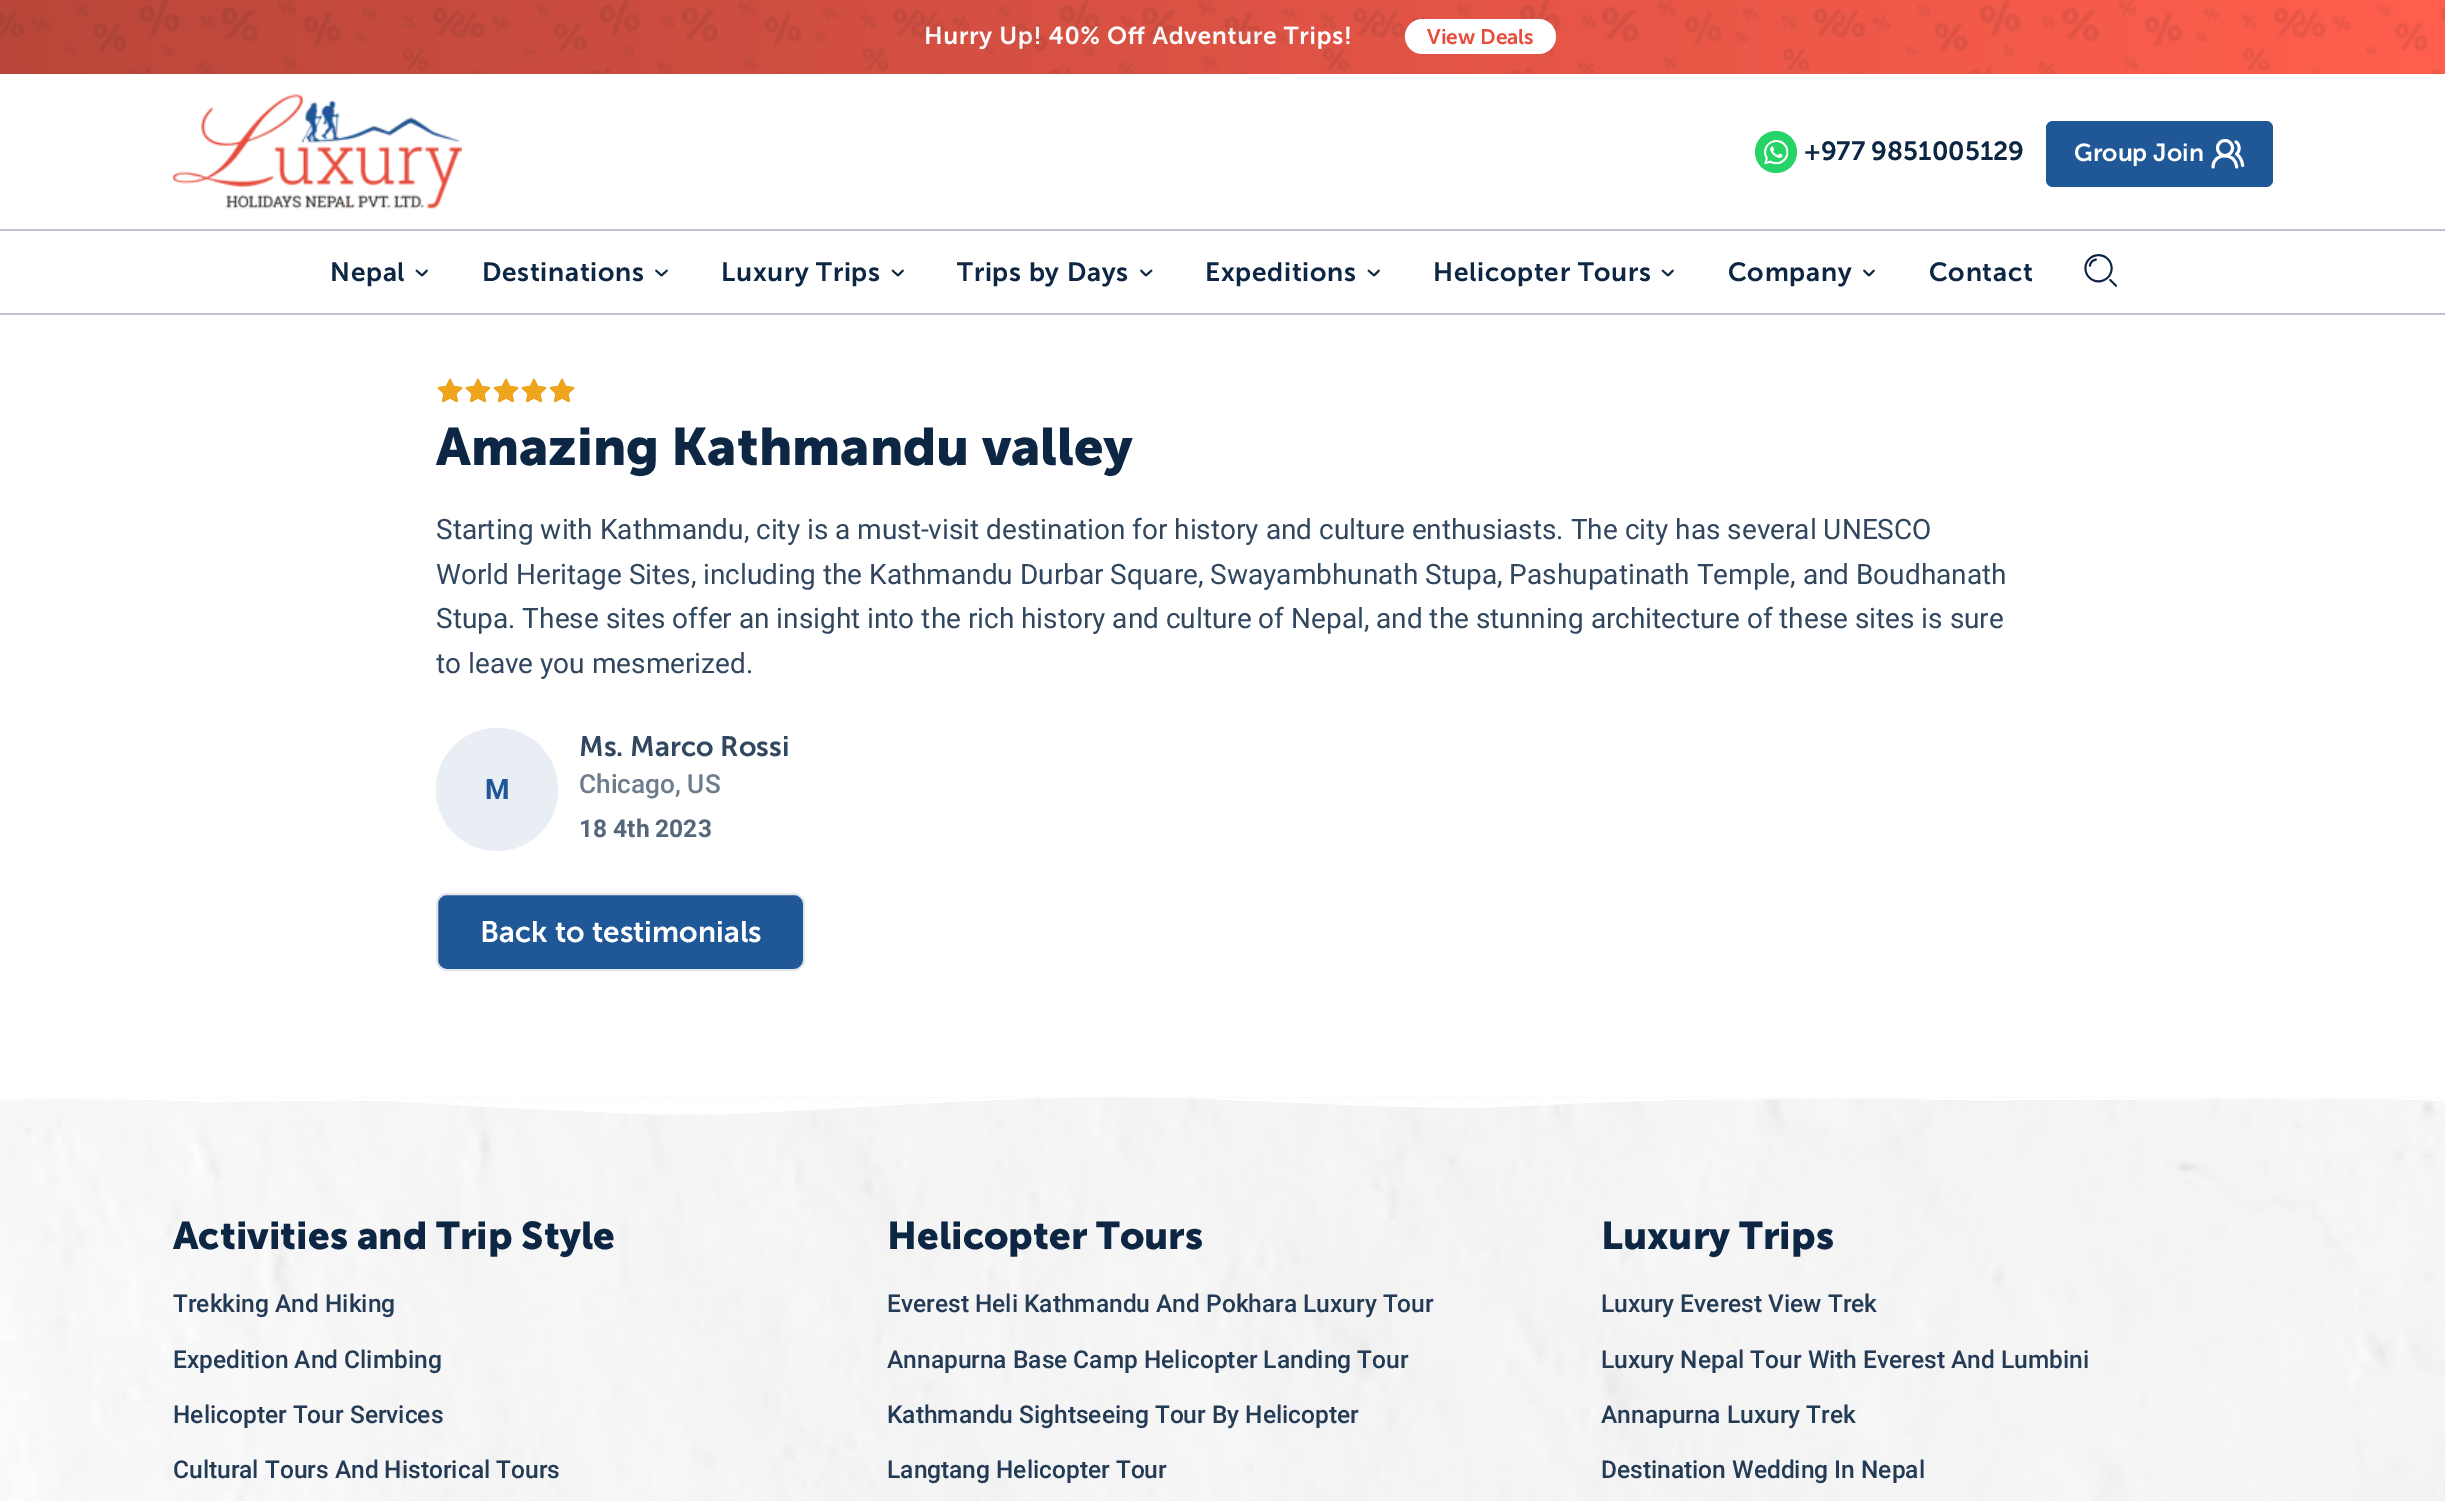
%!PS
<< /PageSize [2445 1501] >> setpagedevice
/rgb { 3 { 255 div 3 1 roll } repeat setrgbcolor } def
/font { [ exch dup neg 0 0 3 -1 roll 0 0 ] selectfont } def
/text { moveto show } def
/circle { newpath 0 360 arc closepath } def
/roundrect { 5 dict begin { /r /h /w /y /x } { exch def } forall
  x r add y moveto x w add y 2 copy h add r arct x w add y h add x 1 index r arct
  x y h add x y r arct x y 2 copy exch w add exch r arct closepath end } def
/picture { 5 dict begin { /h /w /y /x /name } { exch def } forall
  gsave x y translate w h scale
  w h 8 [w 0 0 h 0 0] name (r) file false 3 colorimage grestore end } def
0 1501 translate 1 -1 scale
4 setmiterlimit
255 255 255 rgb
0 0 2445 1501 rectfill
gsave 0 0 moveto 2445 0 rlineto 0 74 rlineto -2445 0 rlineto closepath clip newpath
<< /ShadingType 2 /ColorSpace /DeviceRGB /Coords [0 37 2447 37] /Extend [true true] /Function << /FunctionType 2 /Domain [0 1] /C0 [0.725 0.275 0.227] /C1 [1 0.369 0.302] /N 1 >> >> shfill grestore
(img_02.rgb) 173 94 289 115 picture
37 211 102 rgb
1776 152 21 circle fill
(img_03.rgb) 1764 140 25 25 picture
32 87 151 rgb
2046 121 227 66 7 roundrect fill
255 255 255 rgb
2.9 setlinewidth
1 setlinecap
1 setlinejoin
2236.5 167 moveto 0 -15 -23.5 -15 -23.5 0 rcurveto stroke
0 setlinecap
0 setlinejoin
2225 148 7.5 circle stroke
1 setlinecap
1 setlinejoin
2242.5 165.5 moveto 0 -4.5 -3 -9.5 -6 -11.5 rcurveto 4 -3 3.5 -9.5 -0.5 -12 rcurveto stroke
192 192 215 rgb
0 229 2445 2 rectfill
13 38 67 rgb
1.8 setlinewidth
416.5 270.5 moveto 5.5 5 rlineto 5 -5 rlineto stroke
656 270.5 moveto 5.5 5 rlineto 5.5 -5 rlineto stroke
892.5 270.5 moveto 5.5 5 rlineto 5 -5 rlineto stroke
1141 270.5 moveto 5 5 rlineto 5.5 -5 rlineto stroke
1368.5 270.5 moveto 5.5 5 rlineto 5 -5 rlineto stroke
1662.5 270.5 moveto 5.5 5 rlineto 5 -5 rlineto stroke
1864 270.5 moveto 5 5 rlineto 5 -5 rlineto stroke
(img_04.rgb) 2084 254 33 33 picture
192 192 215 rgb
0 313 2445 2 rectfill
(img_05.rgb) 437 378 138 25 picture
(img_06.rgb) 437 378 138 25 picture
233 238 245 rgb
436 728 122 123 61 roundrect fill
32 87 151 rgb
437 894 367 76 10 roundrect gsave fill grestore
229 231 235 rgb
2 setlinewidth
0 setlinecap
0 setlinejoin
stroke
249 250 252 rgb
0 1097 2445 404 rectfill
(img_07.rgb) 0 1097 2445 404 picture
(img_08.rgb) 0 1097 2445 18 picture
/MuseoSans-SemiBold 24.5 font
255 255 255 rgb
924 44 moveto 0.6 0 (Hurry Up! 40% Off Adventure Trips!) ashow
(img_01.rgb) 0 0 2445 74 picture
1405 19 151 35 17.5 roundrect fill
/MuseoSans-SemiBold 21 font
231 76 60 rgb
(View Deals) 1427 44 text
/MuseoSans-SemiBold 26.25 font
13 38 67 rgb
(+977 9851005129) 1804 160 text
/MuseoSans-SemiBold 24.5 font
255 255 255 rgb
(Group Join) 2074 161 text
/MuseoSans-SemiBold 26.25 font
13 38 67 rgb
330 281 moveto 0.7 0 (Nepal) ashow
482 281 moveto 0.7 0 (Destinations) ashow
721 281 moveto 0.7 0 (Luxury Trips) ashow
957 281 moveto 0.7 0 (Trips by Days) ashow
1205 281 moveto 0.7 0 (Expeditions) ashow
1433 281 moveto 0.7 0 (Helicopter Tours) ashow
1728 281 moveto 0.7 0 (Company) ashow
1929 281 moveto 0.7 0 (Contact) ashow
/MuseoSans-Bold 52.5 font
(Amazing Kathmandu valley) 436 465 text
/Roboto-Regular 28 font
49 70 95 rgb
(Starting with Kathmandu, city is a must-visit destination for history and culture enthusiasts. The city has several UNESCO) 436 539 text
(World Heritage Sites, including the Kathmandu Durbar Square, Swayambhunath Stupa, Pashupatinath Temple, and Boudhanath) 436 584 text
(Stupa. These sites offer an insight into the rich history and culture of Nepal, and the stunning architecture of these sites is sure) 436 628 text
(to leave you mesmerized.) 436 673 text
/Roboto-Bold 28 font
32 87 151 rgb
(M) 485 799 text
/MuseoSans-SemiBold 28 font
49 70 95 rgb
(Ms. Marco Rossi) 579 756 text
/Roboto-Medium 26.25 font
110 125 142 rgb
(Chicago, US) 579 793 text
/Roboto-Bold 24.5 font
86 103 123 rgb
(18 4th 2023) 579 837 text
/MuseoSans-SemiBold 29.75 font
255 255 255 rgb
(Back to testimonials) 480 942 text
/MuseoSans-Bold 38.5 font
13 38 67 rgb
(Activities and Trip Style) 173 1249 text
/Roboto-Medium 24.5 font
36 59 85 rgb
(Trekking And Hiking) 173 1312 text
(Expedition And Climbing) 173 1368 text
(Helicopter Tour Services) 173 1423 text
(Cultural Tours And Historical Tours) 173 1478 text
/MuseoSans-Bold 38.5 font
13 38 67 rgb
(Helicopter Tours) 887 1249 text
/Roboto-Medium 24.5 font
36 59 85 rgb
(Everest Heli Kathmandu And Pokhara Luxury Tour) 887 1312 text
(Annapurna Base Camp Helicopter Landing Tour) 887 1368 text
(Kathmandu Sightseeing Tour By Helicopter) 887 1423 text
(Langtang Helicopter Tour) 887 1478 text
/MuseoSans-Bold 38.5 font
13 38 67 rgb
(Luxury Trips) 1601 1249 text
/Roboto-Medium 24.5 font
36 59 85 rgb
(Luxury Everest View Trek) 1601 1312 text
(Luxury Nepal Tour With Everest And Lumbini) 1601 1368 text
(Annapurna Luxury Trek) 1601 1423 text
(Destination Wedding In Nepal) 1601 1478 text
showpage
